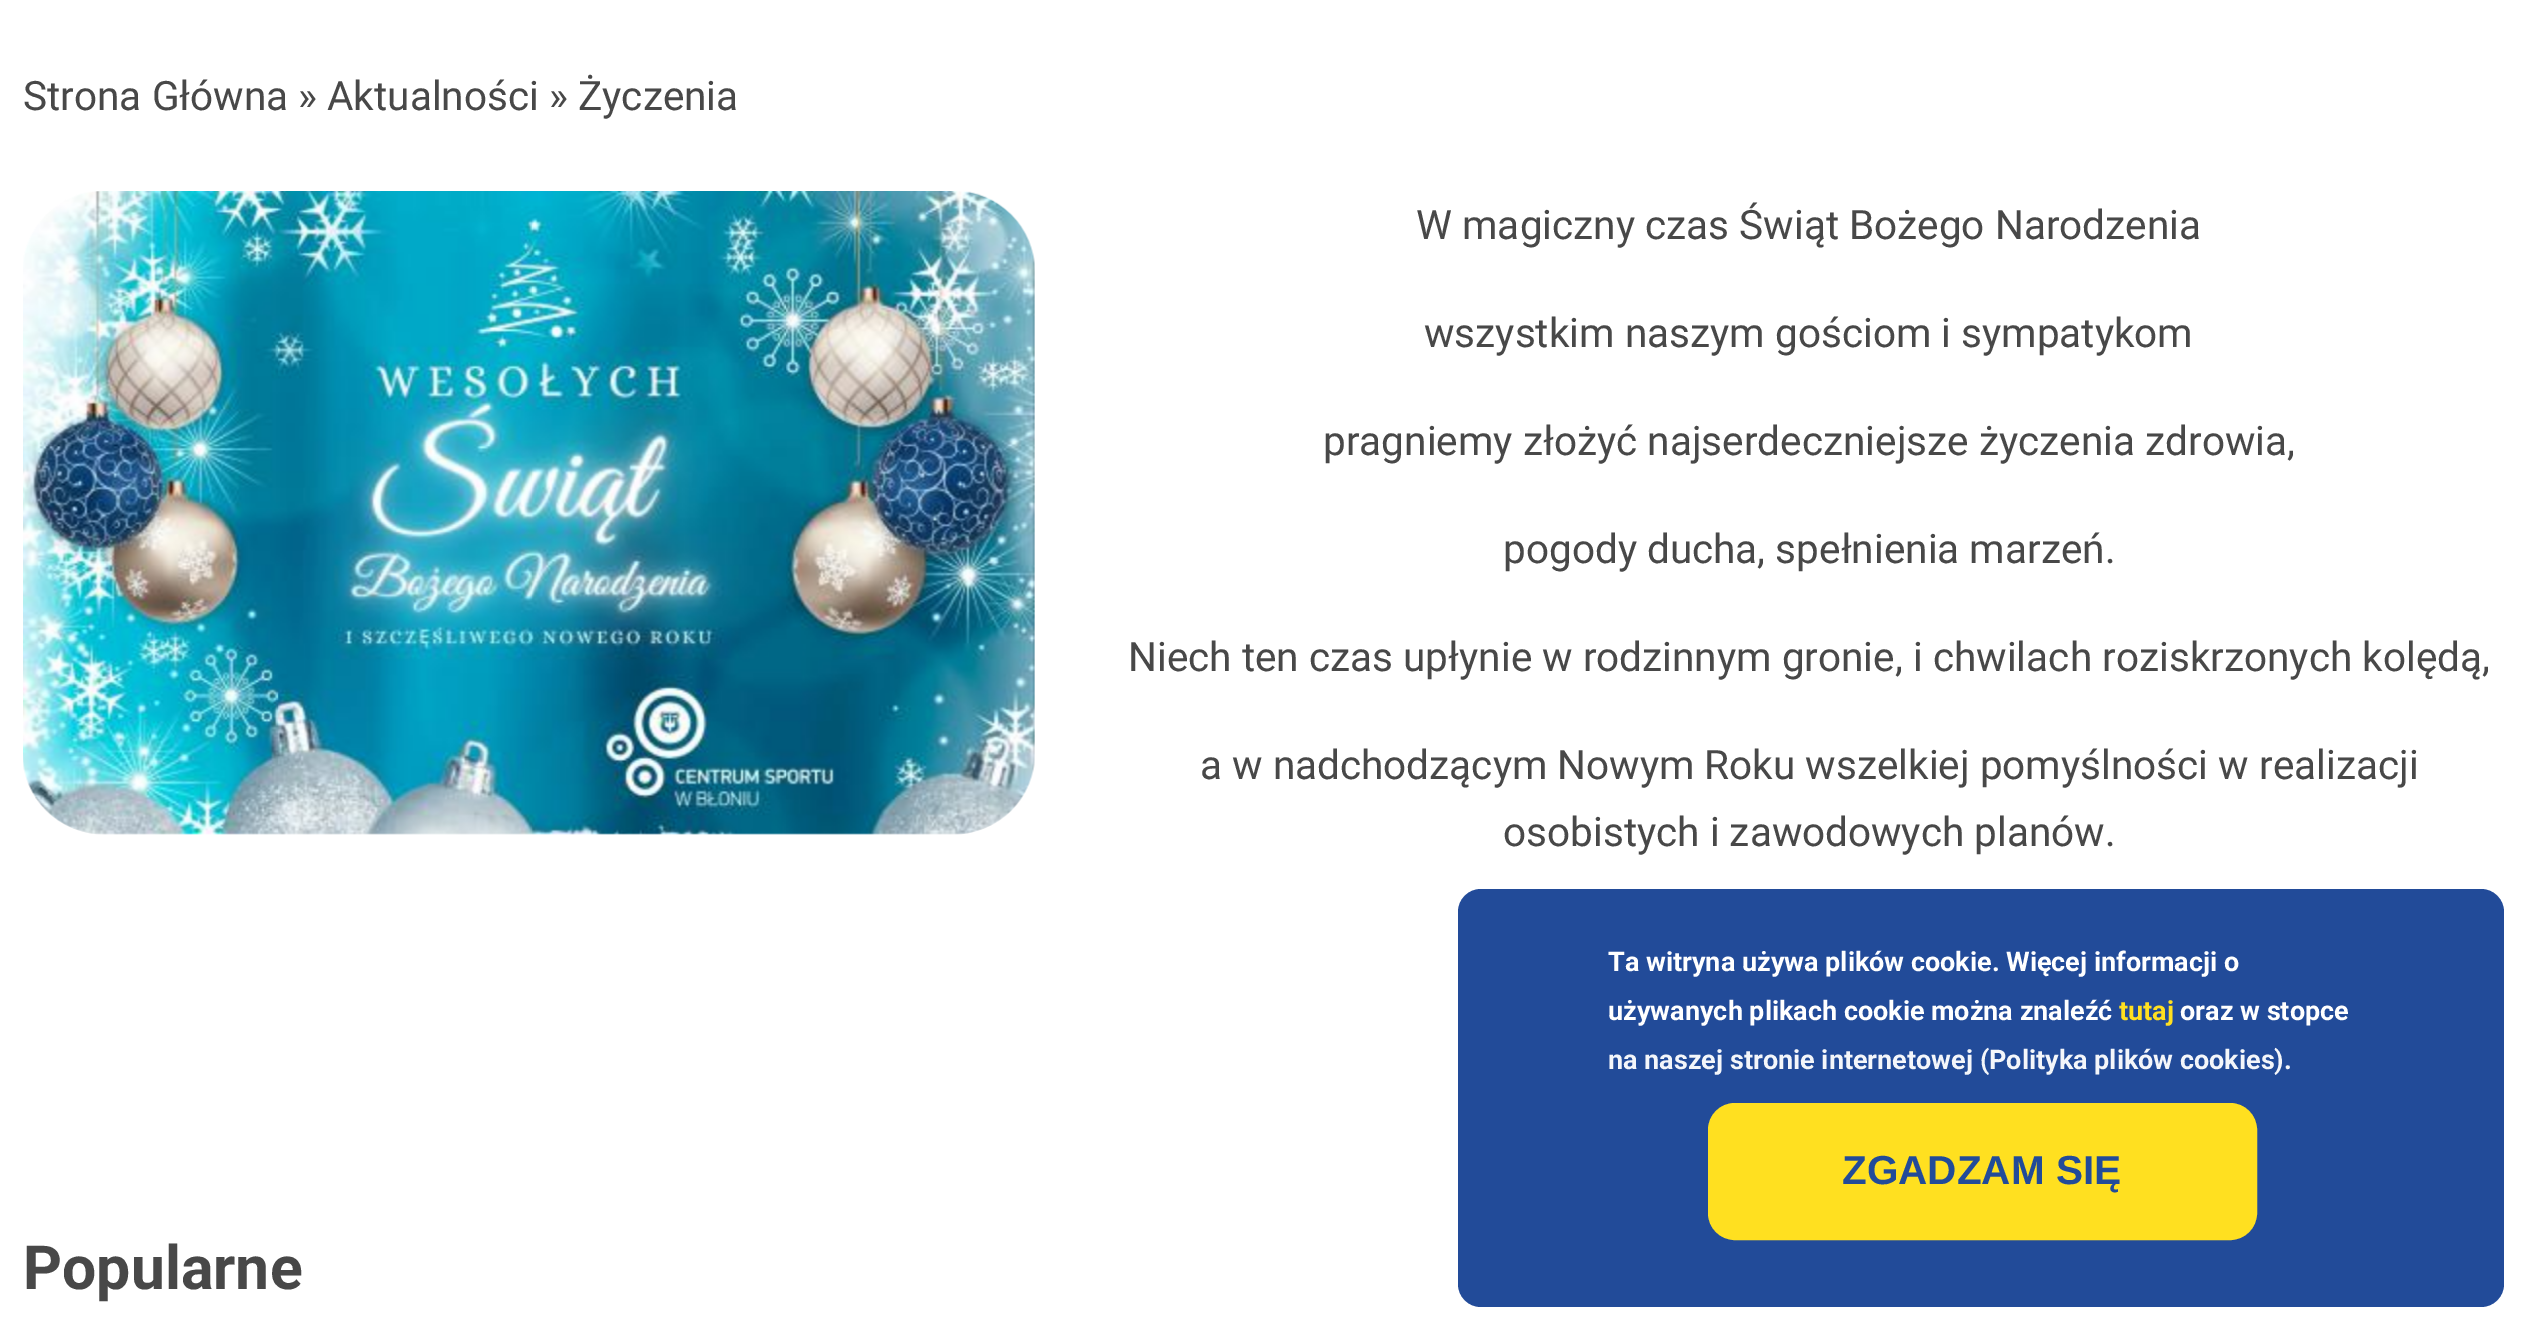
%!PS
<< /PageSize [2538 1340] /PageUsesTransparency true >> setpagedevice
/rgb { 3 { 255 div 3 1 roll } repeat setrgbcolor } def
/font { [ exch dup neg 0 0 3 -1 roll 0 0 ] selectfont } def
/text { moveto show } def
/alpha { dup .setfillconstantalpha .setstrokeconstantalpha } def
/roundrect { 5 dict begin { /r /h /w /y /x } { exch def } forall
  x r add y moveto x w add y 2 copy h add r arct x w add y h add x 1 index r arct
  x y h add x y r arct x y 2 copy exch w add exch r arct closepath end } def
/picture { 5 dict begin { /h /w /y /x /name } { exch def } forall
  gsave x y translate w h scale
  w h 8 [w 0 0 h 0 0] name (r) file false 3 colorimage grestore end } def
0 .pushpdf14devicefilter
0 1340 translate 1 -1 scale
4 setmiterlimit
255 255 255 rgb
0 0 2538 1340 rectfill
(img_01.rgb) 23 191 1012 644 picture
0.95 alpha
22 65 148 rgb
1458 889 1046 418 23 roundrect fill
1 alpha
255 224 32 rgb
1710.5 1105.5 544 132 24.5 roundrect gsave fill grestore
5 setlinewidth
stroke
/Roboto-Regular 40.5 font
72 72 72 rgb
(Strona Główna » Aktualności » Życzenia) 23 110 text
(W magiczny czas Świąt Bożego Narodzenia) 1416 239 text
(wszystkim naszym gościom i sympatykom) 1424 347 text
(pragniemy złożyć najserdeczniejsze życzenia zdrowia,) 1323 455 text
(pogody ducha, spełnienia marzeń.) 1503 563 text
(Niech ten czas upłynie w rodzinnym gronie, i chwilach roziskrzonych kolędą,) 1128 671 text
(a w nadchodzącym Nowym Roku wszelkiej pomyślności w realizacji) 1200 779 text
(osobistych i zawodowych planów.) 1503 846 text
/Roboto-Bold 60.75 font
(Popularne) 23 1289 text
/Roboto-Bold 27 font
255 255 255 rgb
(Ta witryna używa plików cookie. Więcej informacji o) 1608 971 text
(używanych plikach cookie można znaleźć) 1608 1020 text
255 224 32 rgb
(tutaj) 2119 1020 text
255 255 255 rgb
(oraz w stopce) 2180 1020 text
244 246 250 rgb
(na naszej stronie internetowej \(Polityka plików cookies\).) 1608 1069 text
/LiberationSans-Bold 40.5 font
34 75 153 rgb
(ZGADZAM SIĘ) 1842 1184 text
.poppdf14devicefilter showpage
